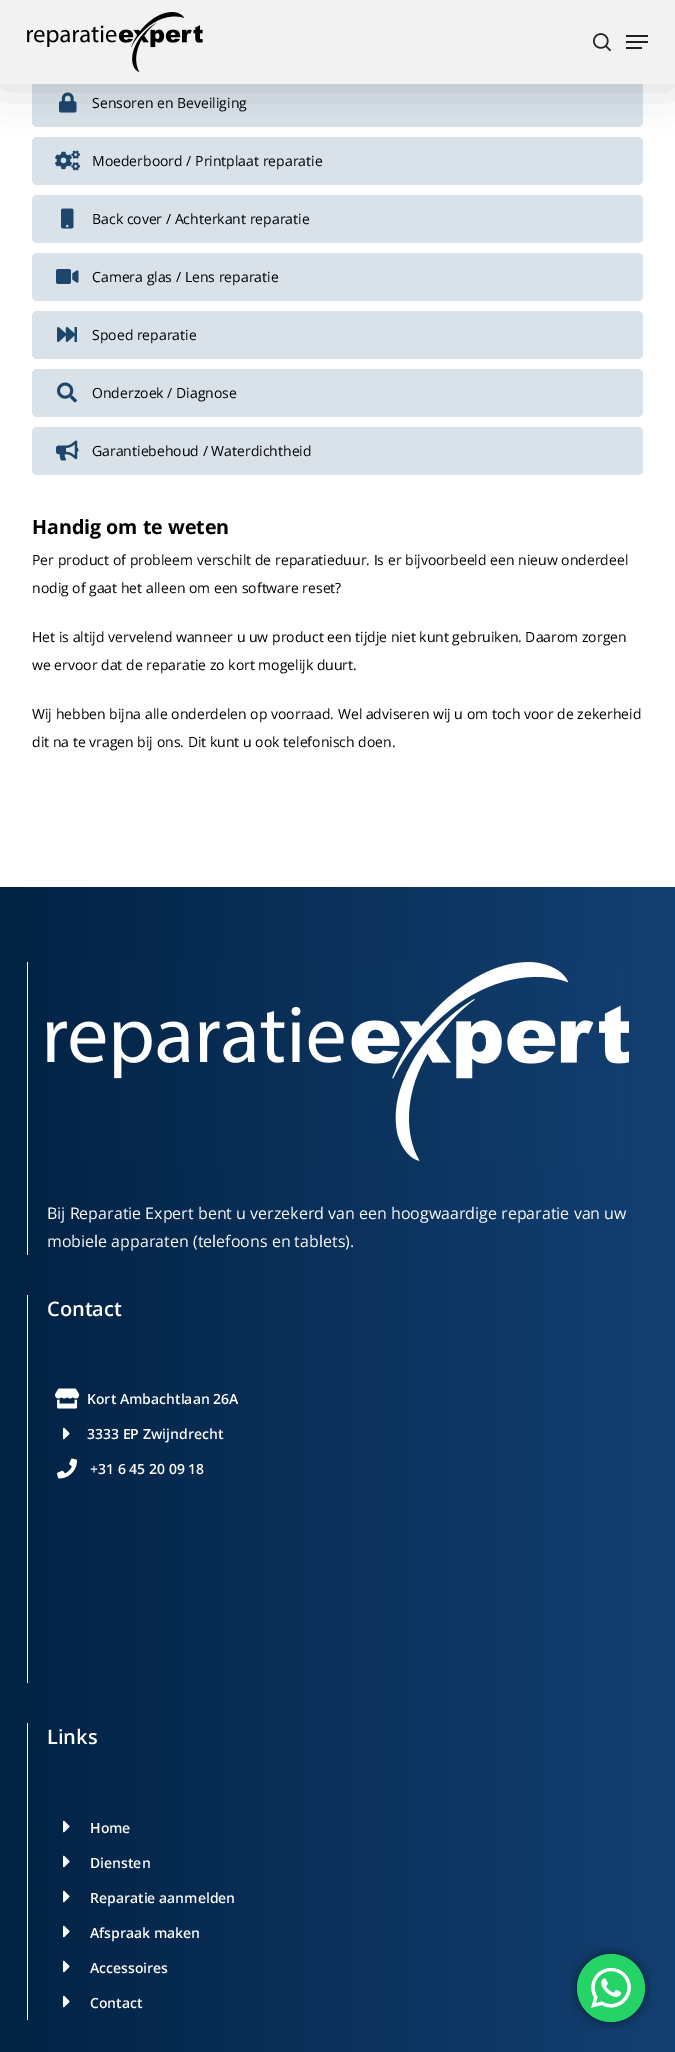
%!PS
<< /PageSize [675 2052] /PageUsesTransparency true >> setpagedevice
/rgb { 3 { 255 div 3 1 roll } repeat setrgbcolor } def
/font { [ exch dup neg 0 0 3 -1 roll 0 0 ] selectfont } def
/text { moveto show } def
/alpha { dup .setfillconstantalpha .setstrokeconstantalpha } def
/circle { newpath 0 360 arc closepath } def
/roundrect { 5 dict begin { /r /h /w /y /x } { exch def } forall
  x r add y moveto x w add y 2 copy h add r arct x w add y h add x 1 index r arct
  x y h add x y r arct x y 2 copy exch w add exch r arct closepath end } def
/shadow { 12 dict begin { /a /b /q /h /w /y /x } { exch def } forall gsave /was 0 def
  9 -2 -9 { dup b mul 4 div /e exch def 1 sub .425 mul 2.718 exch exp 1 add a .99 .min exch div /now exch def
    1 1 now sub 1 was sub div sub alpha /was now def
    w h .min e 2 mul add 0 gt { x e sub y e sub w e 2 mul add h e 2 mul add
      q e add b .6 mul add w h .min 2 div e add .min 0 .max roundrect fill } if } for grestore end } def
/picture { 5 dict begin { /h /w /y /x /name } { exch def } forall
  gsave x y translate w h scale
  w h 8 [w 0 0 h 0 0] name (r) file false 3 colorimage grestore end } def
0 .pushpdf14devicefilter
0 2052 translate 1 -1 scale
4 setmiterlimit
255 255 255 rgb
0 0 675 2052 rectfill
217 225 233 rgb
32 79 611 48 5 roundrect fill
(img_03.rgb) 59 92 18 21 picture
32 137 611 48 5 roundrect fill
(img_04.rgb) 55 150 25 21 picture
0 0 0 rgb
0 3 675 84 0 22.5 0.15 shadow
242 242 242 rgb
0 0 675 84 rectfill
(img_01.rgb) 27 12 176 60 picture
(img_02.rgb) 593 33 18 19 picture
33 33 33 rgb
626 35 22 2 rectfill
626 47 16 2 rectfill
626 41 22 2 rectfill
217 225 233 rgb
32 195 611 48 5 roundrect fill
(img_05.rgb) 61 208 13 21 picture
32 253 611 48 5 roundrect fill
(img_06.rgb) 56 269 23 15 picture
32 311 611 48 5 roundrect fill
(img_07.rgb) 57 327 20 15 picture
32 369 611 48 5 roundrect fill
(img_08.rgb) 57 382 20 21 picture
32 427 611 48 5 roundrect fill
(img_09.rgb) 56 440 23 21 picture
gsave 0 887 moveto 675 0 rlineto 0 1165 rlineto -675 0 rlineto closepath clip newpath
<< /ShadingType 2 /ColorSpace /DeviceRGB /Coords [0 1730 675 1730] /Extend [true true] /Function << /FunctionType 2 /Domain [0 1] /C0 [0.008 0.133 0.263] /C1 [0.075 0.251 0.447] /N 1 >> >> shfill grestore
255 255 255 rgb
27 962 1 293 rectfill
(img_10.rgb) 47 962 582 199 picture
27 1295 1 388 rectfill
(img_11.rgb) 55 1388 25 21 picture
(img_12.rgb) 63 1427 7 13 picture
(img_13.rgb) 57 1458 20 21 picture
27 1723 1 297 rectfill
(img_12.rgb) 63 1820 7 13 picture
(img_12.rgb) 63 1855 7 13 picture
(img_12.rgb) 63 1890 7 13 picture
(img_12.rgb) 63 1925 7 13 picture
(img_12.rgb) 63 1960 7 13 picture
(img_12.rgb) 63 1995 7 13 picture
0 0 0 rgb
577 1954 68 68 34 5.5 0.5 shadow
37 211 102 rgb
611 1988 34 circle fill
(img_14.rgb) 591 1968 40 40 picture
/OpenSans-Regular 14 font
0 0 0 rgb
(Sensoren en Beveiliging) 92 108 text
(Moederboord / Printplaat reparatie) 92 166 text
(Back cover / Achterkant reparatie) 92 224 text
(Camera glas / Lens reparatie) 92 282 text
(Spoed reparatie) 92 340 text
(Onderzoek / Diagnose) 92 398 text
(Garantiebehoud / Waterdichtheid) 92 456 text
/OpenSans-Bold 19.6 font
(Handig om te weten) 32 534 text
/OpenSans-Regular 14 font
(Per product of probleem verschilt de reparatieduur. Is er bijvoorbeeld een nieuw onderdeel) 32 565 text
(nodig of gaat het alleen om een software reset?) 32 593 text
(Het is altijd vervelend wanneer u uw product een tijdje niet kunt gebruiken. Daarom zorgen) 32 642 text
(we ervoor dat de reparatie zo kort mogelijk duurt.) 32 670 text
(Wij hebben bijna alle onderdelen op voorraad. Wel adviseren wij u om toch voor de zekerheid) 32 719 text
(dit na te vragen bij ons. Dit kunt u ook telefonisch doen.) 32 747 text
/OpenSans-Regular 16 font
255 255 255 rgb
(Bij Reparatie Expert bent u verzekerd van een hoogwaardige reparatie van uw) 47 1219 text
(mobiele apparaten \(telefoons en tablets\).) 47 1247 text
/OpenSans-SemiBold 20 font
(Contact) 47 1316 text
/OpenSans-SemiBold 14 font
(Kort Ambachtlaan 26A) 87 1404 text
(3333 EP Zwijndrecht) 87 1439 text
(+31 6 45 20 09 18) 90 1474 text
/OpenSans-SemiBold 20 font
(Links) 47 1744 text
/OpenSans-SemiBold 14 font
(Home) 90 1833 text
(Diensten) 90 1868 text
(Reparatie aanmelden) 90 1903 text
(Afspraak maken) 90 1938 text
(Accessoires) 90 1973 text
(Contact) 90 2008 text
.poppdf14devicefilter showpage
